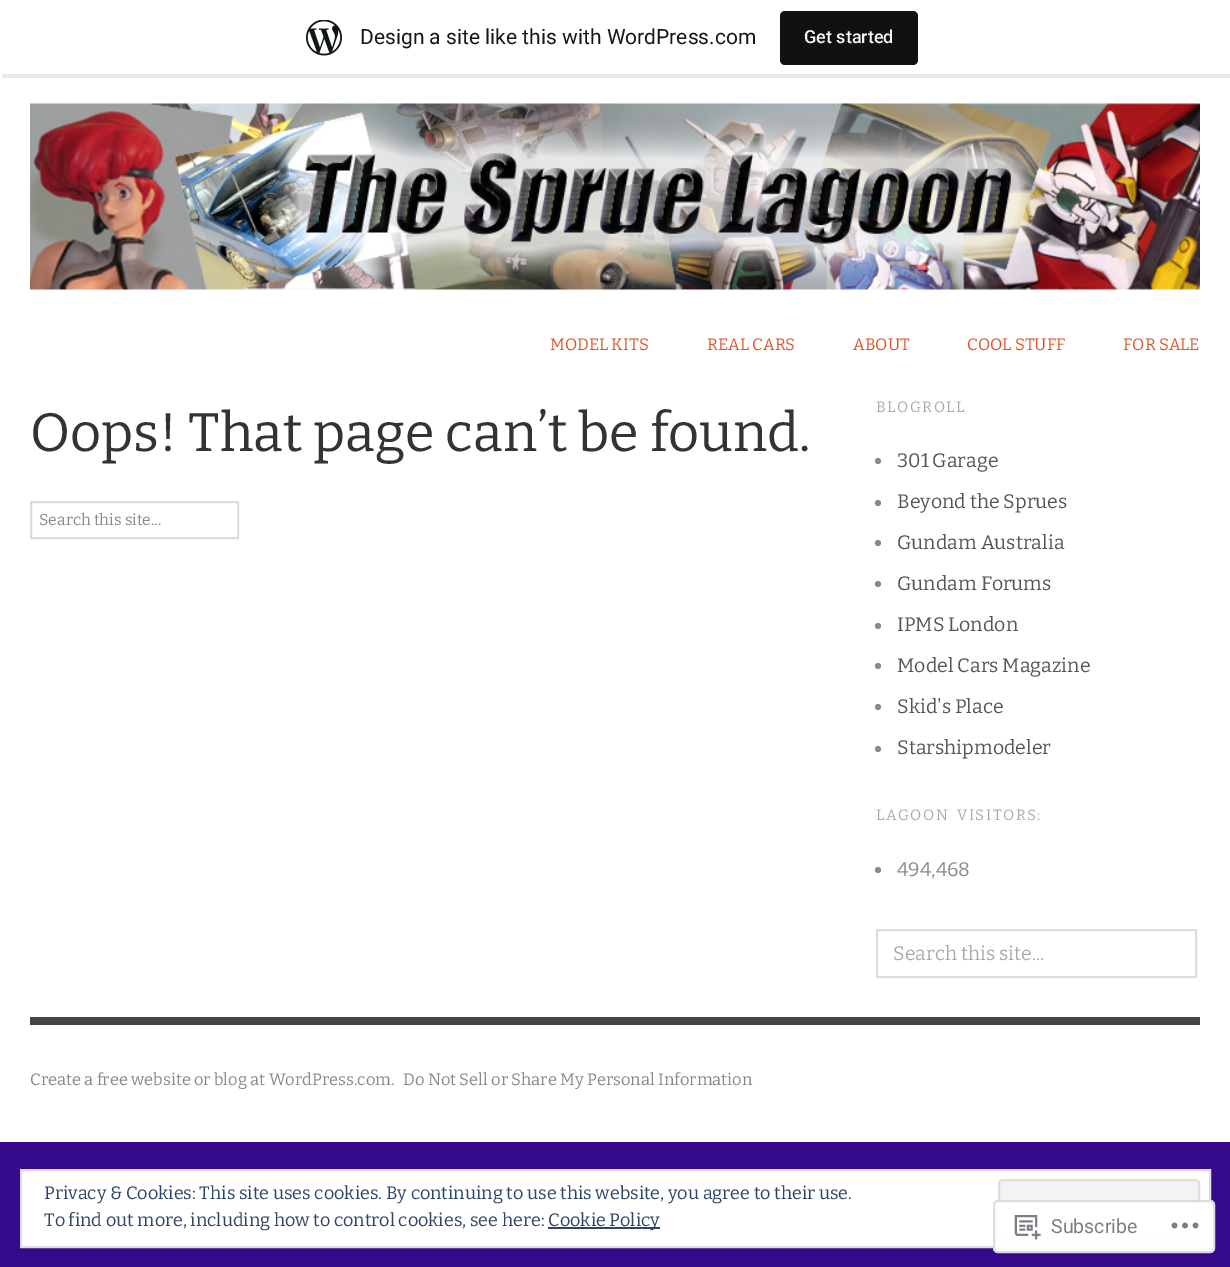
%!PS
<< /PageSize [1230 1267] /PageUsesTransparency true >> setpagedevice
/rgb { 3 { 255 div 3 1 roll } repeat setrgbcolor } def
/font { [ exch dup neg 0 0 3 -1 roll 0 0 ] selectfont } def
/text { moveto show } def
/alpha { dup .setfillconstantalpha .setstrokeconstantalpha } def
/circle { newpath 0 360 arc closepath } def
/roundrect { 5 dict begin { /r /h /w /y /x } { exch def } forall
  x r add y moveto x w add y 2 copy h add r arct x w add y h add x 1 index r arct
  x y h add x y r arct x y 2 copy exch w add exch r arct closepath end } def
/picture { 5 dict begin { /h /w /y /x /name } { exch def } forall
  gsave x y translate w h scale
  w h 8 [w 0 0 h 0 0] name (r) file false 3 colorimage grestore end } def
0 .pushpdf14devicefilter
0 1267 translate 1 -1 scale
4 setmiterlimit
52 10 138 rgb
0 0 1230 1267 rectfill
255 255 255 rgb
0 0 1230 1142 rectfill
0.08 alpha
0 0 0 rgb
2 74 moveto 0 4 rlineto 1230 0 rlineto 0 -73 rlineto -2 0 rlineto 0 69 rlineto closepath fill
1 alpha
(img_01.rgb) 306 20 36 36 picture
17 17 17 rgb
780 11 138 54 5 roundrect fill
(img_02.rgb) 30 103 1170 187 picture
221 221 221 rgb
2 setlinewidth
31 502 207 36 rectstroke
136 136 136 rgb
878 461 3 circle fill
878 503 3 circle fill
878 543 3 circle fill
878 584 3 circle fill
878 626 3 circle fill
878 666 3 circle fill
878 707 3 circle fill
878 749 3 circle fill
878 870 3 circle fill
221 221 221 rgb
877 930 319 47 rectstroke
68 68 68 rgb
30 1017 1170 8 rectfill
255 255 255 rgb
21 1170 moveto 1189 0 rlineto 0 77 rlineto -1189 0 rlineto closepath gsave fill grestore
222 222 222 rgb
stroke
243 243 243 rgb
999 1180 200 57 4 roundrect gsave fill grestore
222 222 222 rgb
stroke
46 68 103 rgb
548 1227 112 2 rectfill
0.98 alpha
255 255 255 rgb
993 1200 222 53 5 roundrect fill
220 220 222 rgb
994 1201 220 51 4 roundrect stroke
1 alpha
(img_03.rgb) 1014 1215 27 25 picture
(img_04.rgb) 1171 1222 28 7 picture
/Roboto-Regular 21 font
23 23 23 rgb
(Design a site like this with WordPress.com) 360 44 text
/Roboto-Medium 18 font
246 247 247 rgb
(Get started) 804 43 text
/Bitter-Thin 16.5 font
221 84 36 rgb
(MODEL KITS) 550 350 text
(REAL CARS) 707 350 text
(ABOUT) 853 350 text
(COOL STUFF) 967 350 text
(FOR SALE) 1123 350 text
/Bitter-Thin 54 font
51 51 51 rgb
(Oops! That page can’t be found.) 30 451 text
/Bitter-Thin 15.75 font
136 136 136 rgb
(Search this site...) 39 525 text
/Bitter-Thin 15 font
170 170 170 rgb
876 412 moveto 1.5 0 (BLOGROLL) ashow
/Bitter-Thin 19.5 font
85 85 85 rgb
(301 Garage) 897 467 text
(Beyond the Sprues) 897 508 text
(Gundam Australia) 897 549 text
(Gundam Forums) 897 590 text
(IPMS London) 897 631 text
(Model Cars Magazine) 897 672 text
(Skid's Place) 897 713 text
(Starshipmodeler) 897 754 text
/Bitter-Thin 15 font
170 170 170 rgb
876 820 moveto 3 0 32 1.5 0 (LAGOON VISITORS:) awidthshow
/Bitter-Thin 19.5 font
136 136 136 rgb
(494,468) 897 876 text
170 170 170 rgb
(Search this site...) 893 960 text
/Bitter-Thin 16.5 font
136 136 136 rgb
(Create a free website or blog at WordPress.com.) 30 1085 text
(Do Not Sell or Share My Personal Information) 403 1085 text
/Bitter-Thin 18 font
46 68 103 rgb
(Privacy & Cookies: This site uses cookies. By continuing to use this website, you agree to their use.) 44 1199 text
(To find out more, including how to control cookies, see here:) 44 1226 text
(Cookie Policy) 548 1226 text
/Roboto-Regular 19.5 font
122 126 132 rgb
(Subscribe) 1051 1233 text
.poppdf14devicefilter showpage
